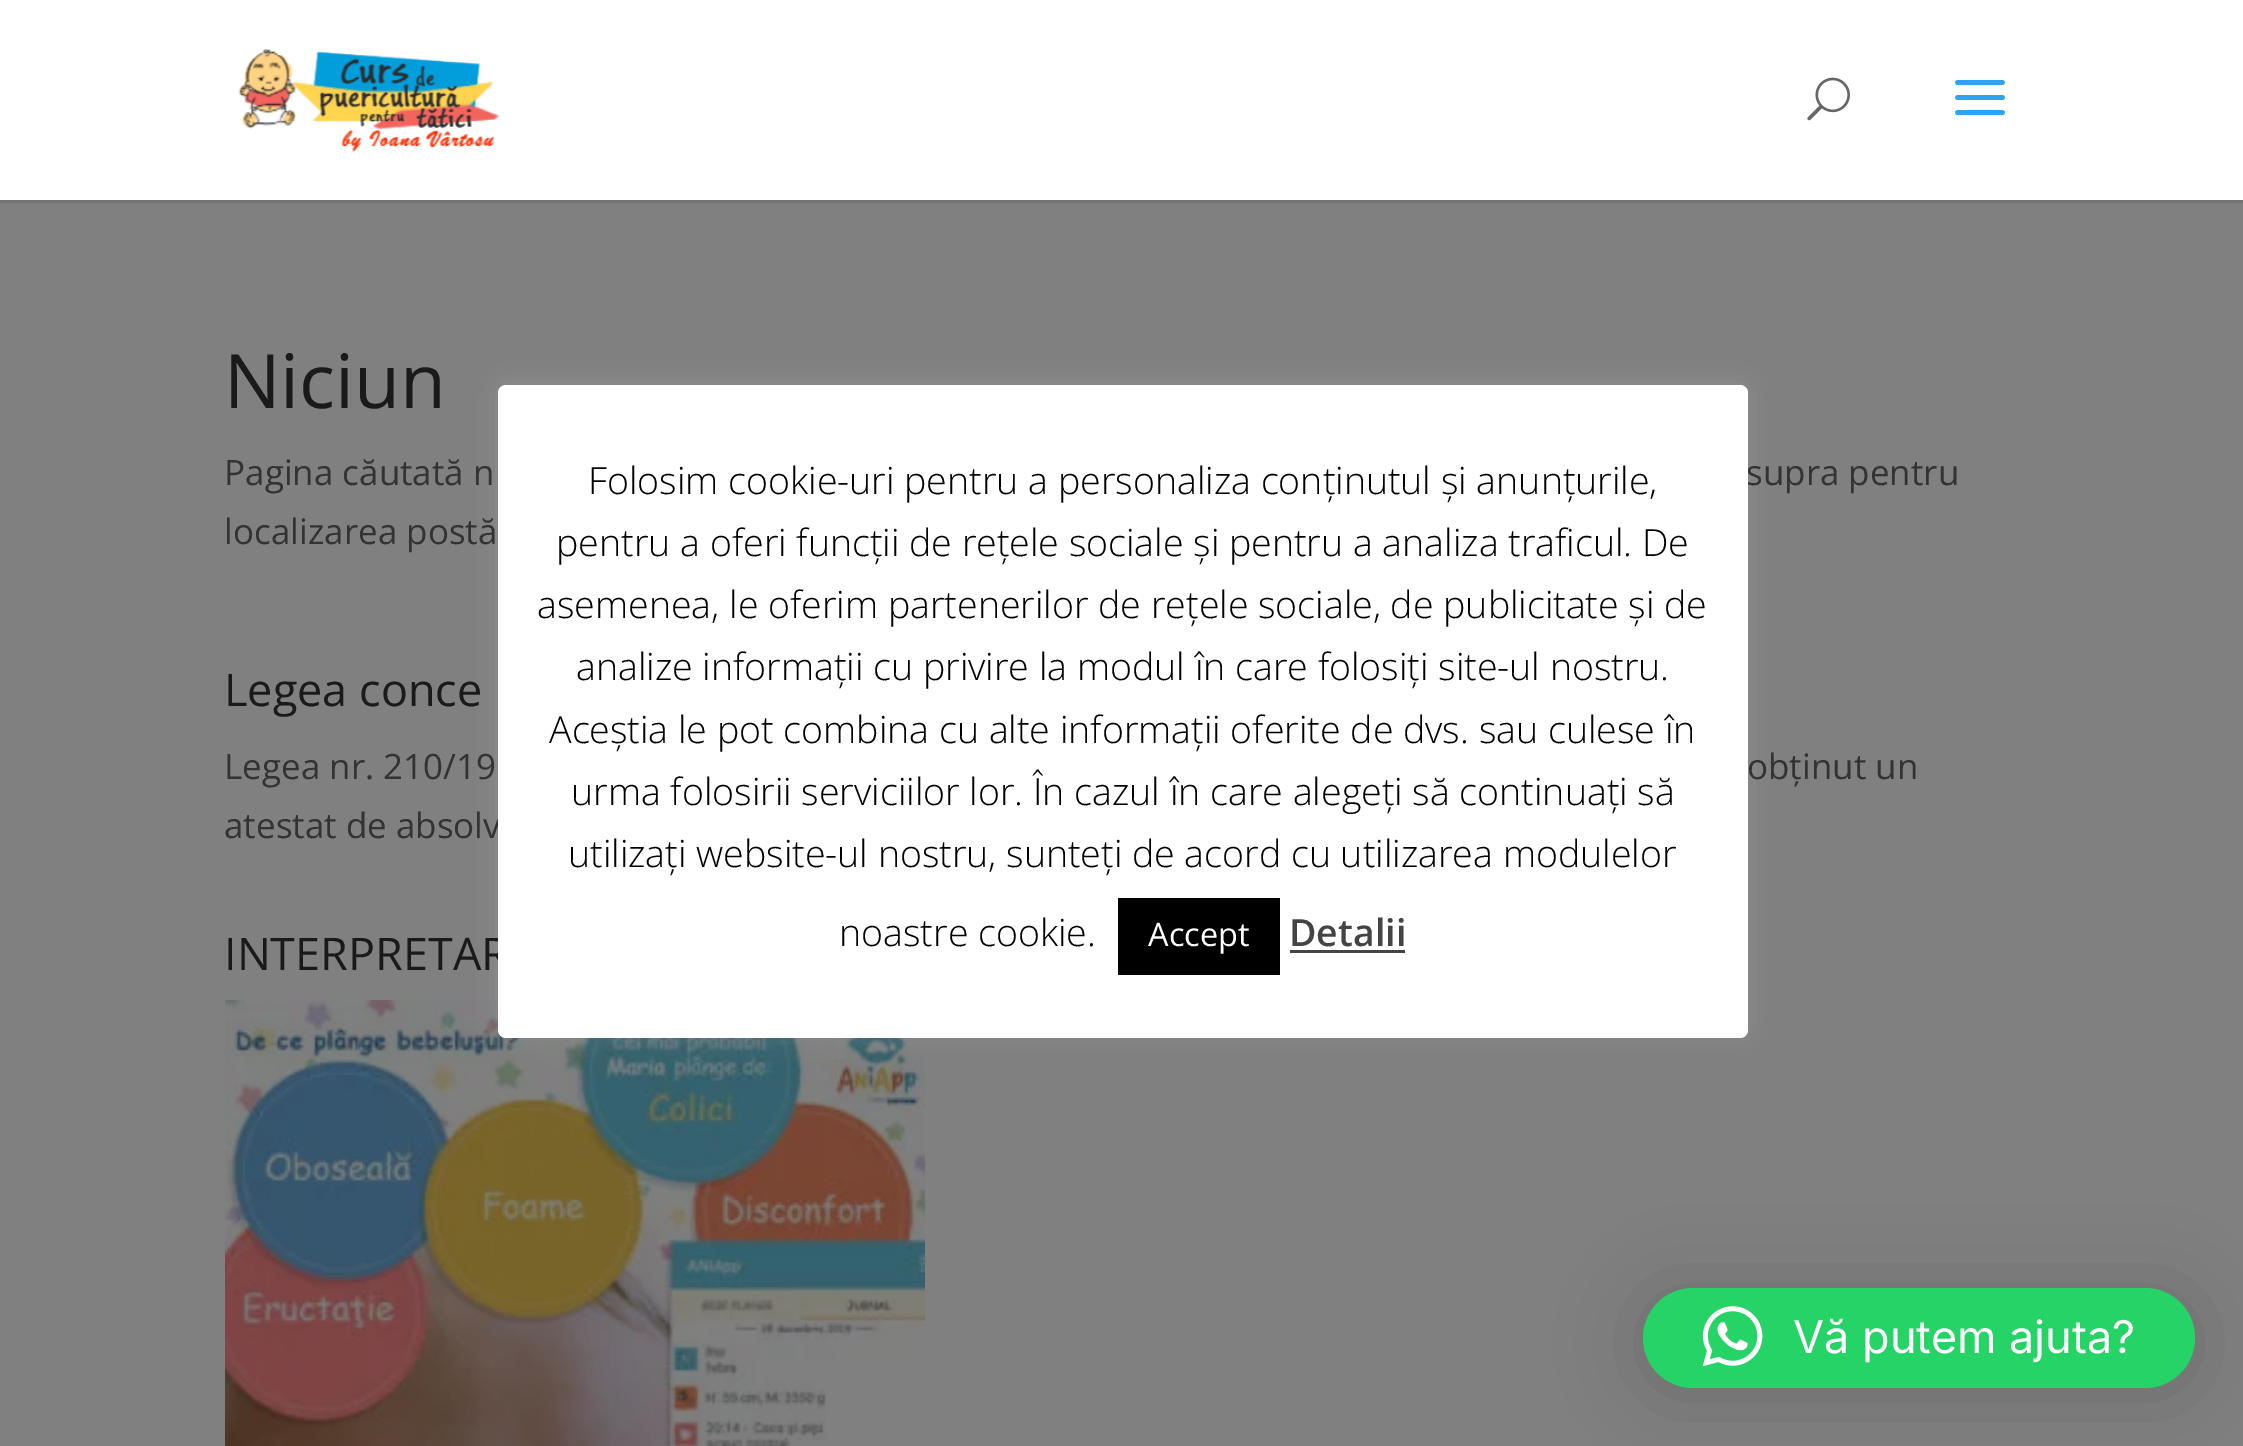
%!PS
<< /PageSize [2243 1446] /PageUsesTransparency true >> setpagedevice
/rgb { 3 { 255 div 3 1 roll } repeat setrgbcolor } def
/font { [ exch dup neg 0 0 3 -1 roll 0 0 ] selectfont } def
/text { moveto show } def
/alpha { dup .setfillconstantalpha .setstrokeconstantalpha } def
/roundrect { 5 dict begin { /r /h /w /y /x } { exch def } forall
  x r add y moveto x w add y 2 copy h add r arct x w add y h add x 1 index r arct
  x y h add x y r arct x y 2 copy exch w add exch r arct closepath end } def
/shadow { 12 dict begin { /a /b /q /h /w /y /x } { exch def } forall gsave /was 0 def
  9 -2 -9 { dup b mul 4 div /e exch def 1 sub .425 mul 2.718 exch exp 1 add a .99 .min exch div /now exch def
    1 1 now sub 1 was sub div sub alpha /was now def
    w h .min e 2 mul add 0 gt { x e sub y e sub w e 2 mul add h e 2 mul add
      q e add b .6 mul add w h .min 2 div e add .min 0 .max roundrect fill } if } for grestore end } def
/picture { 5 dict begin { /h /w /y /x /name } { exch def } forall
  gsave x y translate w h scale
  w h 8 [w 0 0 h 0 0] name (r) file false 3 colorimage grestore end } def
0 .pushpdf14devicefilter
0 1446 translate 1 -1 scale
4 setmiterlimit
128 128 128 rgb
0 0 2243 1446 rectfill
115 115 115 rgb
0 200 2243 3 rectfill
255 255 255 rgb
0 0 2243 200 rectfill
(img_01.rgb) 238 49 262 103 picture
(img_02.rgb) 1807 77 43 44 picture
(img_03.rgb) 1955 80 50 35 picture
(img_04.rgb) 225 1000 700 446 picture
172 171 171 rgb
498 383 1250 652 8 12.5 0.3 shadow
0 0 0 rgb
1643 1293 552 100 50 40 0.16 shadow
37 211 102 rgb
1643 1288 552 100 50 roundrect fill
(img_05.rgb) 1702 1306 61 61 picture
/OpenSans-Regular 75 font
26 26 26 rgb
(Niciun) 224 408 text
/OpenSans-Regular 35 font
51 51 51 rgb
(Pagina căutată n) 224 485 text
(supra pentru) 1746 485 text
(localizarea postă) 224 544 text
/OpenSans-Regular 45 font
26 26 26 rgb
(Legea conce) 224 706 text
/OpenSans-Regular 35 font
51 51 51 rgb
(Legea nr. 210/19) 224 779 text
(obținut un) 1747 779 text
(atestat de absolv) 224 838 text
/OpenSans-Regular 45 font
26 26 26 rgb
(INTERPRETAR) 224 970 text
255 255 255 rgb
498 385 1250 653 8 roundrect fill
/OpenSans-Light 37.5 font
0 0 0 rgb
(Folosim cookie-uri pentru a personaliza conținutul și anunțurile,) 588 494 text
(pentru a oferi funcții de rețele sociale și pentru a analiza traficul. De) 556 556 text
(asemenea, le oferim partenerilor de rețele sociale, de publicitate și de) 537 618 text
(analize informații cu privire la modul în care folosiți site-ul nostru.) 576 680 text
(Aceștia le pot combina cu alte informații oferite de dvs. sau culese în) 549 743 text
(urma folosirii serviciilor lor. În cazul în care alegeți să continuați să) 571 805 text
(utilizați website-ul nostru, sunteți de acord cu utilizarea modulelor) 568 867 text
(noastre cookie.) 839 946 text
1118 898 162 77 rectfill
/OpenSans-Regular 32.5 font
255 255 255 rgb
(Accept) 1148 946 text
/OpenSans-SemiBold 37.5 font
68 68 68 rgb
(Detalii) 1289 946 text
1290 950 115 3 rectfill
/Inter-Regular 45 font
255 255 255 rgb
(Vă putem ajuta?) 1793 1353 text
.poppdf14devicefilter showpage
